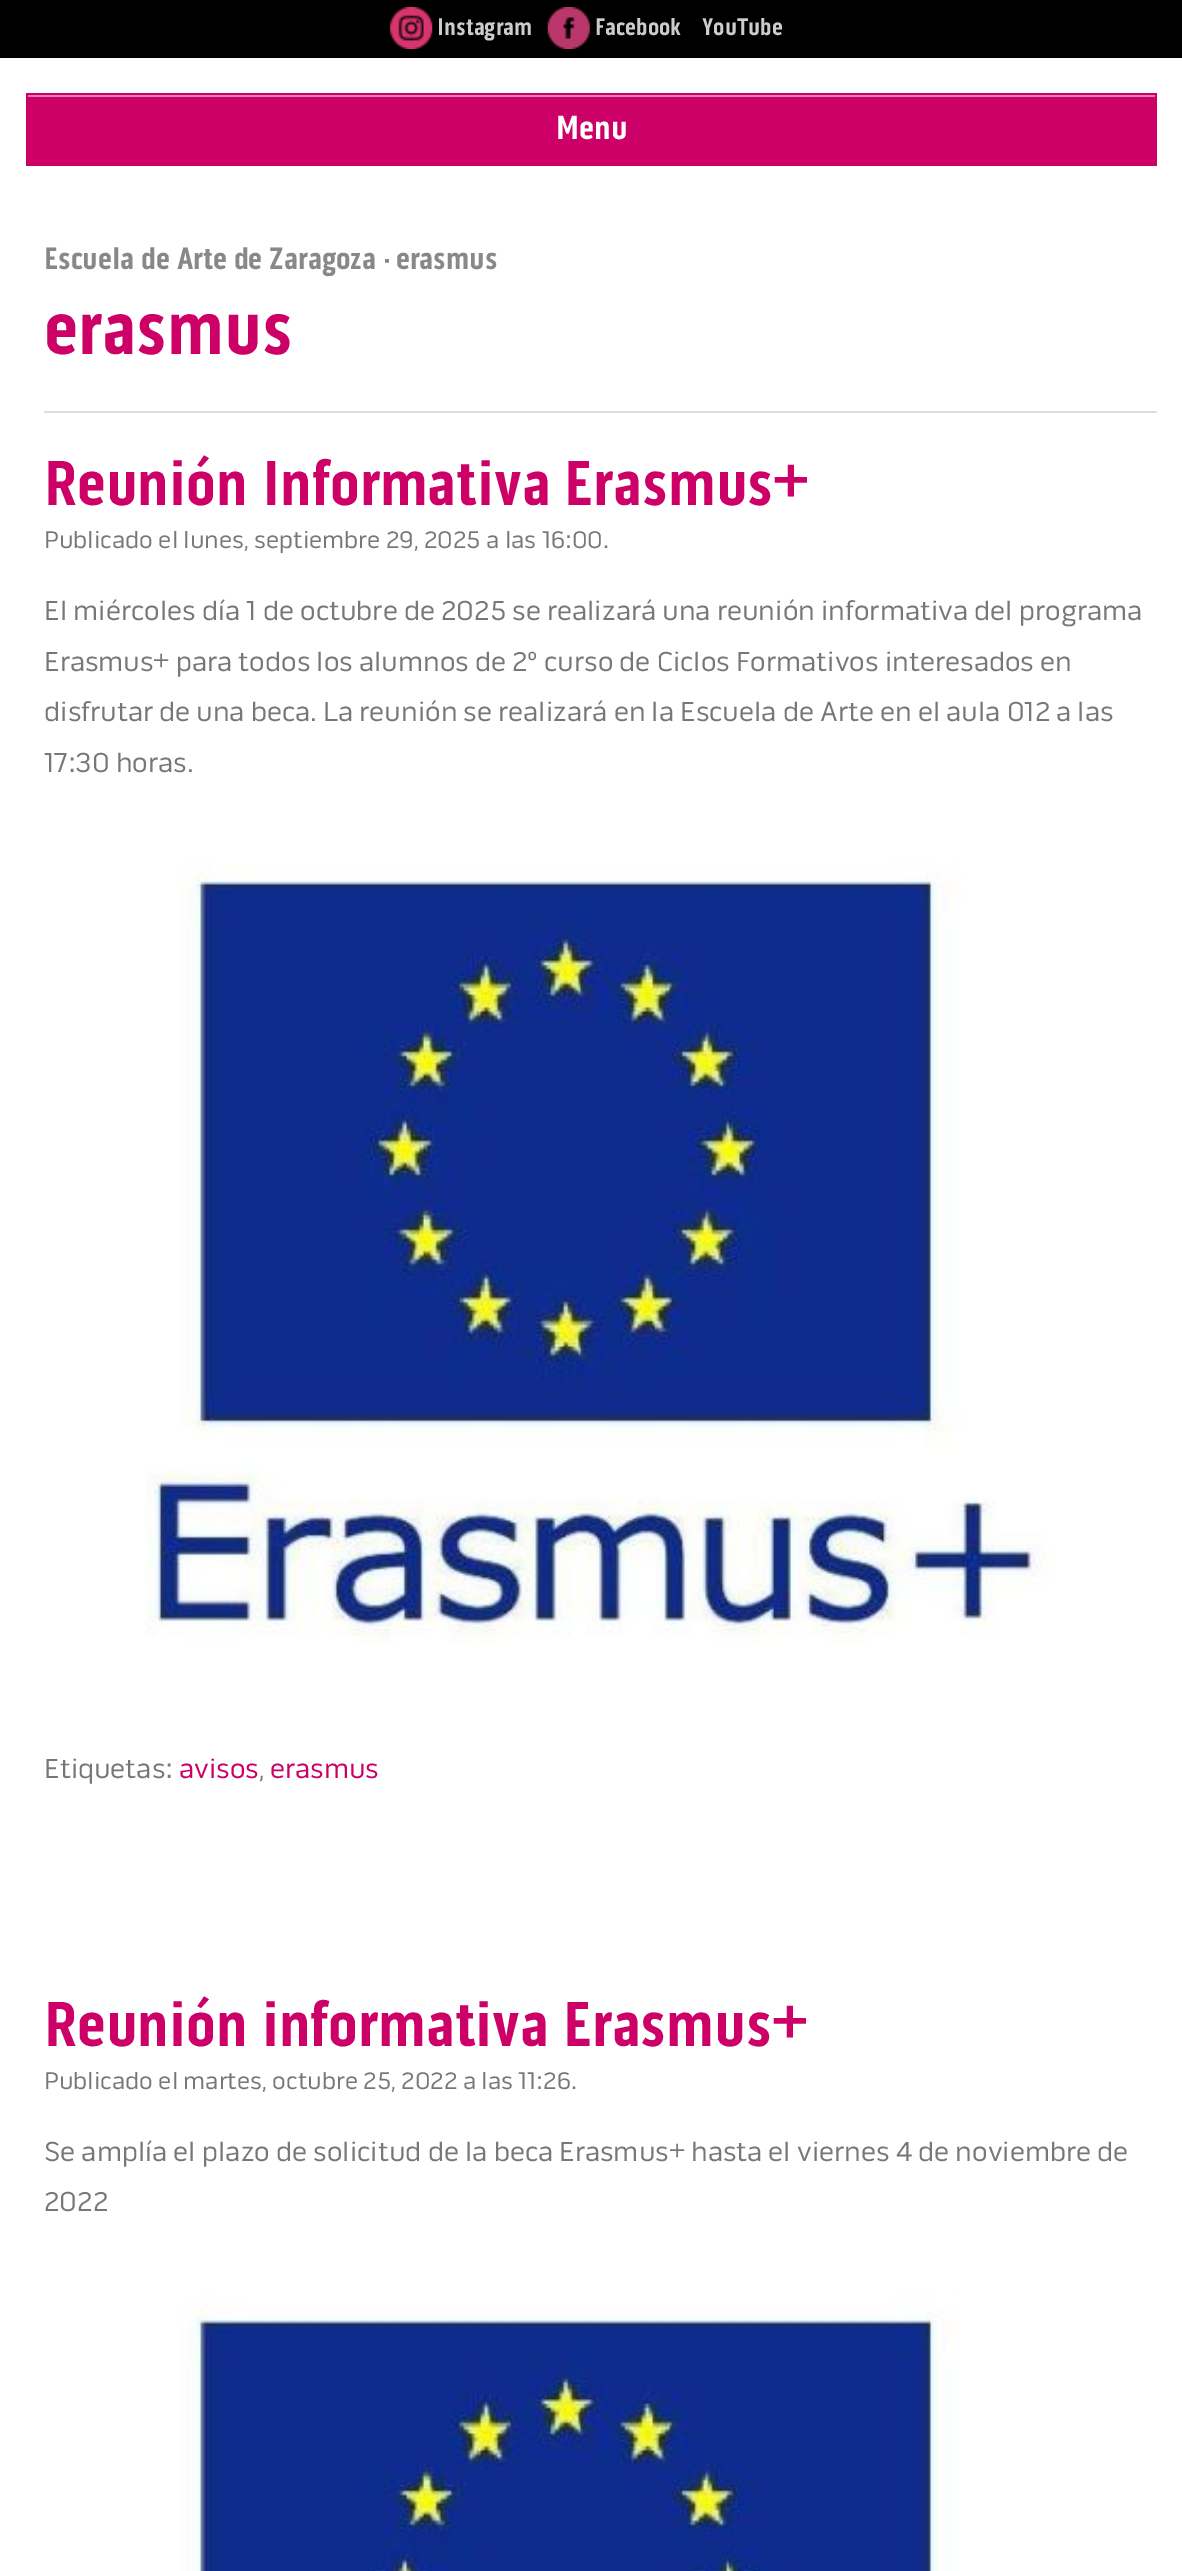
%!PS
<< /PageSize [1182 2571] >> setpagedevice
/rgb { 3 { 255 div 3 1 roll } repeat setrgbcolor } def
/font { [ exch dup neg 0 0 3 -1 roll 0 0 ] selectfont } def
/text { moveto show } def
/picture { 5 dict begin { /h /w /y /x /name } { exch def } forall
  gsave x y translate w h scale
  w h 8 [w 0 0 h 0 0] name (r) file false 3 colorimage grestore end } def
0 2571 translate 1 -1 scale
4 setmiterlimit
255 255 255 rgb
0 0 1182 2571 rectfill
0 0 0 rgb
0 0 1182 58 rectfill
(img_01.rgb) 390 7 43 42 picture
(img_02.rgb) 547 7 43 42 picture
204 0 102 rgb
26 93 1131 73 rectfill
230 128 179 rgb
28 95 1127 2 rectfill
221 221 221 rgb
44 411 1113 2 rectfill
(img_03.rgb) 145 855 907 789 picture
(img_04.rgb) 181 2293 779 278 picture
/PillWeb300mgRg-Bold 24.5 font
204 204 204 rgb
(Instagram) 437 35 text
(Facebook) 595 35 text
(YouTube) 702 35 text
/PillWeb300mgRg-Bold 34 font
255 255 255 rgb
(Menu) 556 139 text
/PillWeb300mgRg-Bold 31.5 font
136 136 136 rgb
(Escuela de Arte de Zaragoza · erasmus) 44 269 text
/PillWeb300mgRg-Bold 77 font
204 0 102 rgb
(erasmus) 44 354 text
/PillWeb300mgRg-Bold 64.75 font
(Reunión Informativa Erasmus+) 44 505 text
/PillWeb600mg-Regular 24.5 font
119 119 119 rgb
(Publicado el lunes, septiembre 29, 2025 a las 16:00.) 44 548 text
/PillWeb600mg-Regular 28 font
(El miércoles día 1 de octubre de 2025 se realizará una reunión informativa del programa) 44 620 text
(Erasmus+ para todos los alumnos de 2º curso de Ciclos Formativos interesados en) 44 671 text
(disfrutar de una beca. La reunión se realizará en la Escuela de Arte en el aula 012 a las) 44 721 text
(17:30 horas.) 44 772 text
(Etiquetas:) 44 1778 text
204 0 102 rgb
(avisos) 179 1778 text
119 119 119 rgb
(,) 259 1778 text
204 0 102 rgb
(erasmus) 270 1778 text
/PillWeb300mgRg-Bold 64.75 font
(Reunión informativa Erasmus+) 44 2046 text
/PillWeb600mg-Regular 24.5 font
119 119 119 rgb
(Publicado el martes, octubre 25, 2022 a las 11:26.) 44 2089 text
/PillWeb600mg-Regular 28 font
(Se amplía el plazo de solicitud de la beca Erasmus+ hasta el viernes 4 de noviembre de) 44 2161 text
(2022) 44 2211 text
showpage
